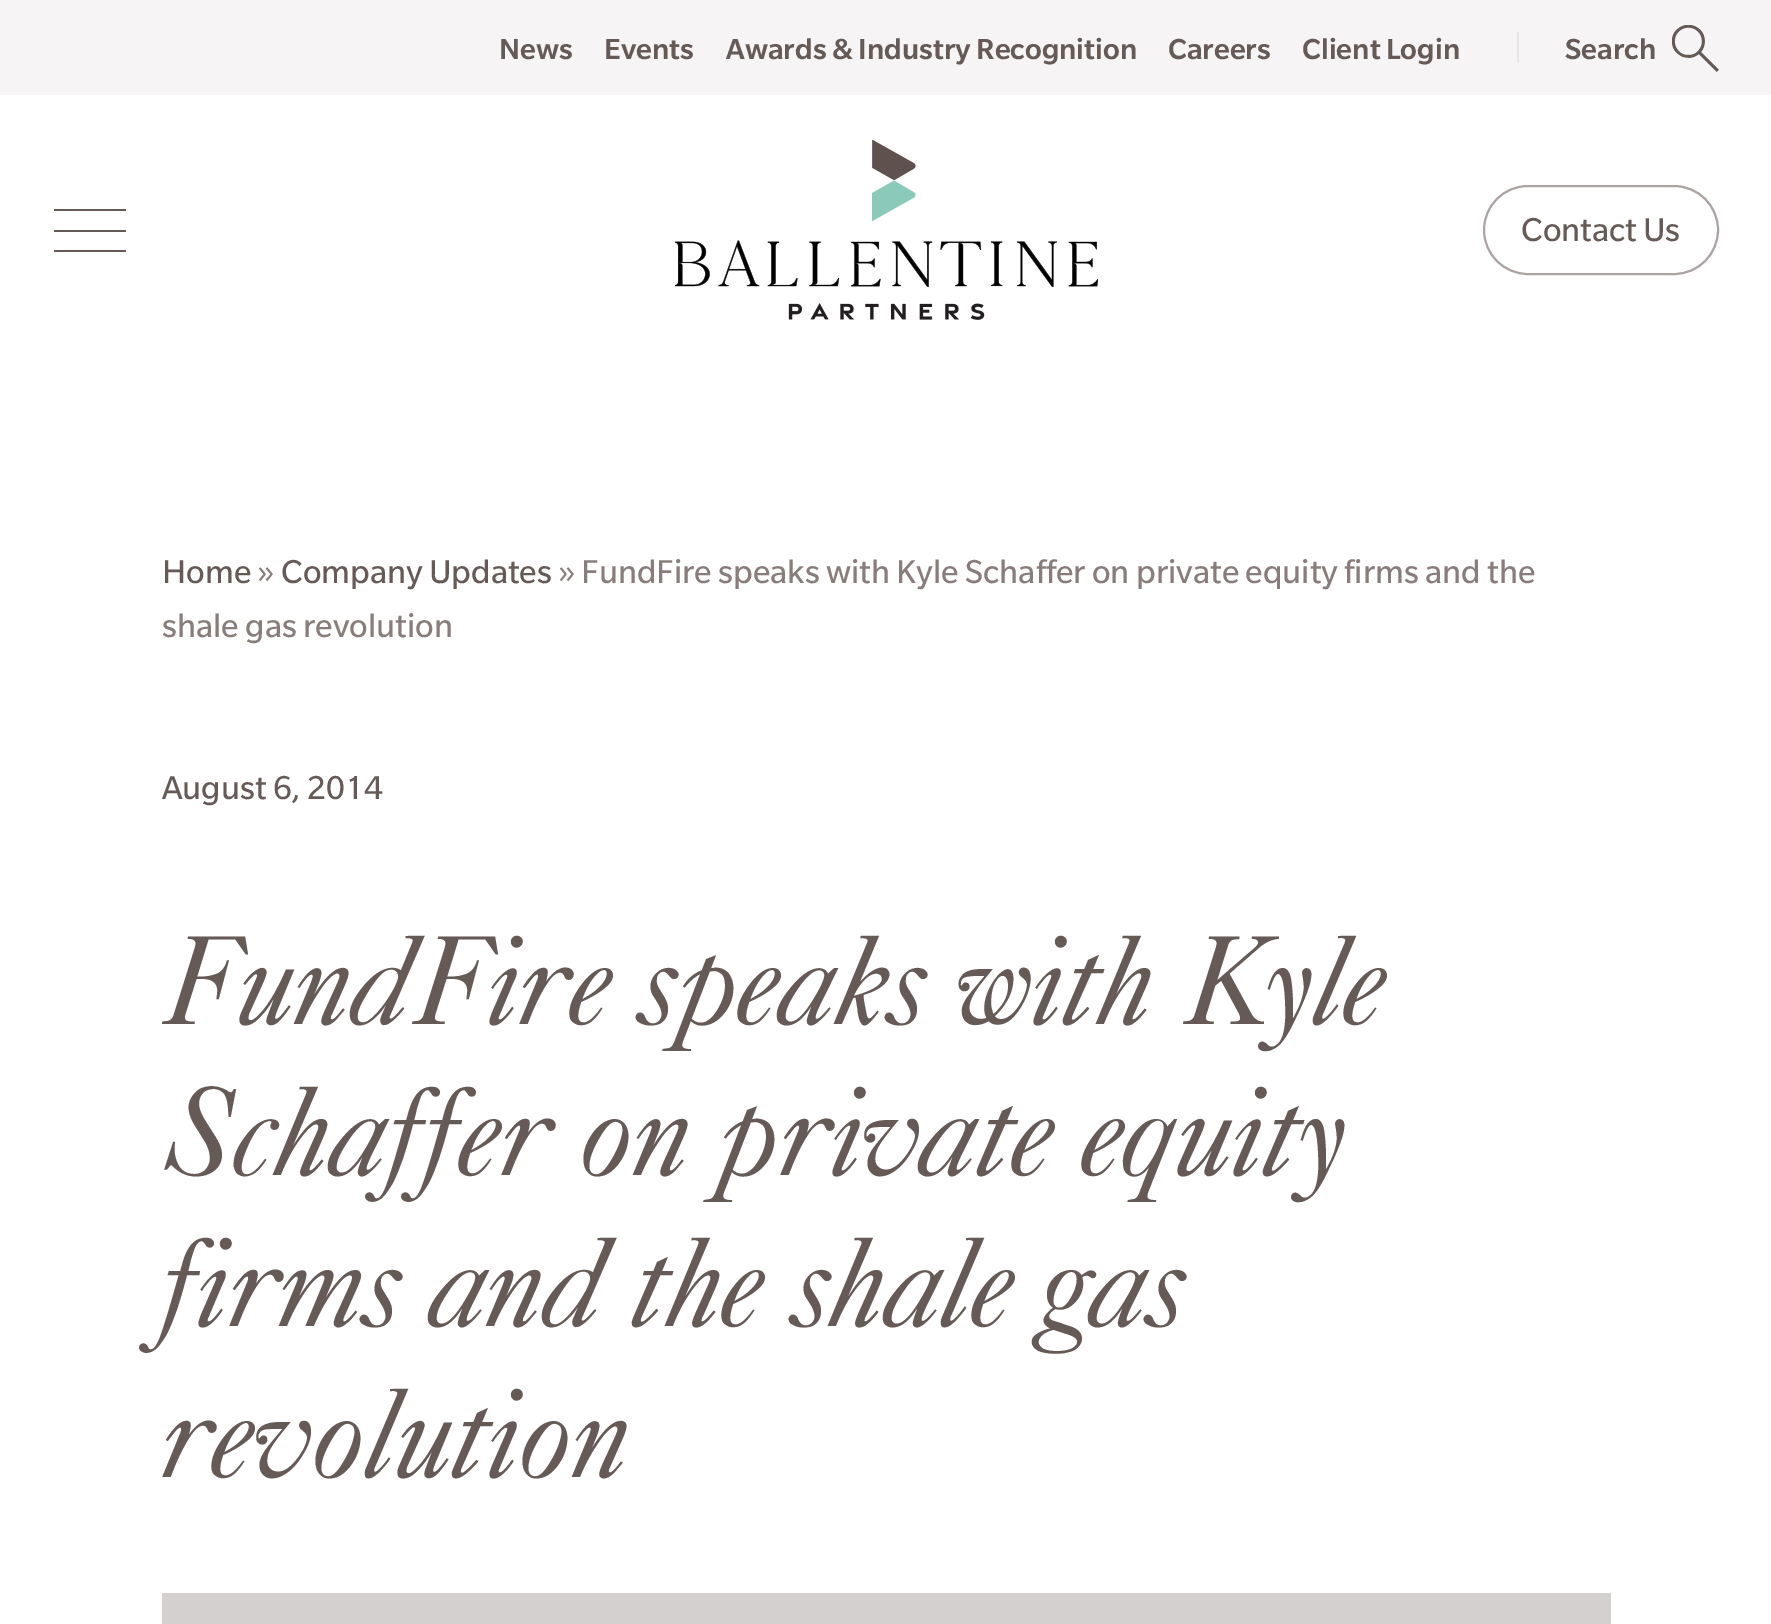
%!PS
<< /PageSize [1771 1624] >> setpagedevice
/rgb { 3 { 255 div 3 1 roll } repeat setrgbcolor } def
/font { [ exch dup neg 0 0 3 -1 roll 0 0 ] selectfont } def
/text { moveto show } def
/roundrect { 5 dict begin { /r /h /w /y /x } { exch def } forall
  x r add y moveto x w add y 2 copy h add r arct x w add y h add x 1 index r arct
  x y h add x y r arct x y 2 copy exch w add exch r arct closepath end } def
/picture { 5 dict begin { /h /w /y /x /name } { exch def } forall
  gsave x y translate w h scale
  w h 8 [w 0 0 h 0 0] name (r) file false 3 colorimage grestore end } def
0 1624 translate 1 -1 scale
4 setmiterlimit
255 255 255 rgb
0 0 1771 1624 rectfill
246 244 244 rgb
0 0 1771 95 rectfill
232 229 228 rgb
1517 32 2 31 rectfill
(img_01.rgb) 1672 25 47 47 picture
102 90 87 rgb
54 209 72 2 rectfill
54 230 72 2 rectfill
54 250 72 2 rectfill
(img_02.rgb) 675 140 423 180 picture
172 164 162 rgb
2 setlinewidth
1484 186 234 88 44 roundrect stroke
212 208 207 rgb
162 1593 1449 31 rectfill
/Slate-Medium 31.5 font
102 90 87 rgb
(News) 499 59 text
(Events) 604 59 text
(Awards & Industry Recognition) 726 59 text
(Careers) 1168 59 text
(Client Login) 1302 59 text
(Search) 1565 59 text
/Slate-Regular 36 font
(Contact Us) 1521 241 text
(Home) 162 583 text
136 125 123 rgb
(») 257 583 text
102 90 87 rgb
(Company Updates) 281 583 text
136 125 123 rgb
(» FundFire speaks with Kyle Schaffer on private equity firms and the) 558 583 text
(shale gas revolution) 162 637 text
102 90 87 rgb
(August 6, 2014) 162 799 text
/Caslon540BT-Italic 126 font
(FundFire speaks with Kyle) 162 1024 text
(Schaffer on private equity) 162 1175 text
(firms and the shale gas) 162 1326 text
(revolution) 162 1477 text
showpage
